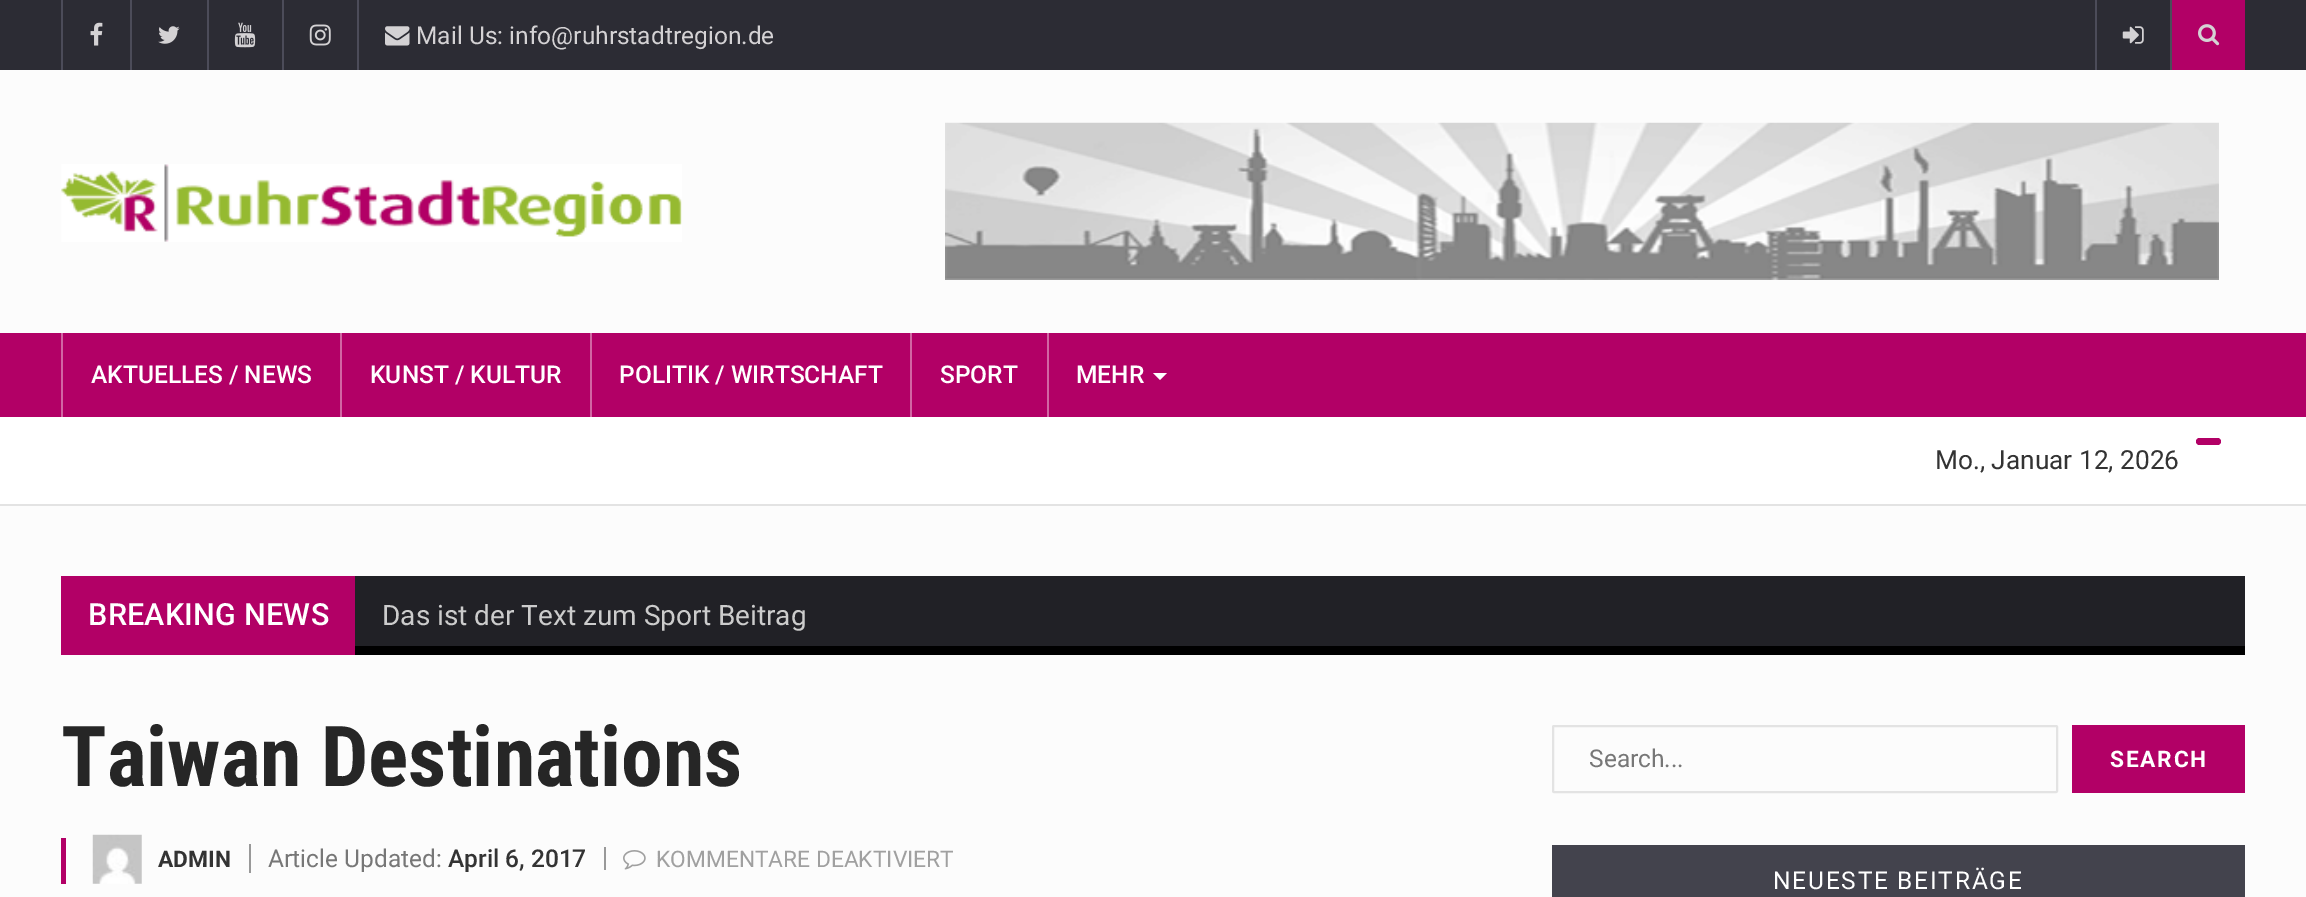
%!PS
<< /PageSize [2306 897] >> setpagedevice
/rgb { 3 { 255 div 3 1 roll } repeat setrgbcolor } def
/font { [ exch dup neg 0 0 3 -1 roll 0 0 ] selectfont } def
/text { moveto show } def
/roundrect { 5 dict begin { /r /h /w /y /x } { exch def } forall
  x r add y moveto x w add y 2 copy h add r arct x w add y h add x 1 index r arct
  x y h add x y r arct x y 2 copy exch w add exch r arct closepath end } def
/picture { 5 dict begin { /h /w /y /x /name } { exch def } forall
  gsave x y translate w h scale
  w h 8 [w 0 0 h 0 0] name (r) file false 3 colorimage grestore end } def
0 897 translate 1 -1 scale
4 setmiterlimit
252 252 252 rgb
0 0 2306 897 rectfill
44 44 52 rgb
0 0 2306 70 rectfill
76 76 89 rgb
61 0 2 70 rectfill
(img_01.rgb) 90 22 13 24 picture
130 0 2 70 rectfill
(img_02.rgb) 158 26 22 18 picture
207 0 2 70 rectfill
(img_03.rgb) 234 22 22 26 picture
282 0 2 70 rectfill
(img_04.rgb) 309 24 22 22 picture
357 0 2 70 rectfill
(img_05.rgb) 385 26 25 20 picture
2095 0 2 70 rectfill
(img_06.rgb) 2122 26 22 18 picture
178 0 102 rgb
2172 0 73 70 rectfill
76 76 89 rgb
2170 0 2 70 rectfill
(img_07.rgb) 2198 24 22 22 picture
(img_08.rgb) 61 164 621 78 picture
(img_09.rgb) 945 122 1274 158 picture
178 0 102 rgb
0 333 2306 84 rectfill
209 102 163 rgb
61 333 2 84 rectfill
340 333 2 84 rectfill
590 333 2 84 rectfill
910 333 2 84 rectfill
1047 333 2 84 rectfill
255 255 255 rgb
1153 373 moveto 14 0 rlineto -7 7 rlineto closepath fill
0 417 2306 87 rectfill
178 0 102 rgb
2196 438 25 7 3.5 roundrect fill
227 227 227 rgb
0 504 2306 2 rectfill
0 0 0 rgb
355 646 1890 9 rectfill
178 0 102 rgb
61 576 294 79 rectfill
33 33 38 rgb
355 576 1890 70 rectfill
178 0 102 rgb
61 838 5 46 rectfill
(img_10.rgb) 92 834 50 50 picture
153 153 153 rgb
249 844 2 29 rectfill
604 847 2 23 rectfill
(img_11.rgb) 623 850 23 20 picture
227 227 227 rgb
2 setlinewidth
1553 726 504 66 1 roundrect stroke
178 0 102 rgb
2072 725 173 68 rectfill
67 67 77 rgb
1552 845 693 52 rectfill
/Roboto-Regular 24.5 font
212 210 212 rgb
(Mail Us: info@ruhrstadtregion.de) 416 44 text
/Roboto-Medium 24.5 font
255 255 255 rgb
(AKTUELLES / NEWS) 91 383 text
(KUNST / KULTUR) 370 383 text
(POLITIK / WIRTSCHAFT) 619 383 text
(SPORT) 940 383 text
(MEHR) 1076 383 text
/Roboto-Regular 26.25 font
51 51 51 rgb
(Mo., Januar 12, 2026) 1935 469 text
/Roboto-Medium 30.5 font
255 255 255 rgb
88 625 moveto 0.25 0 (BREAKING NEWS) ashow
/Roboto-Regular 28 font
204 204 204 rgb
(Das ist der Text zum Sport Beitrag) 382 625 text
/RobotoCondensed-Bold 84 font
38 38 38 rgb
(Taiwan Destinations) 61 786 text
/Roboto-Bold 22.75 font
51 51 51 rgb
(ADMIN) 158 867 text
/Roboto-Regular 24.5 font
119 119 119 rgb
(Article Updated:) 268 867 text
/Roboto-Medium 24.5 font
51 51 51 rgb
(April 6, 2017) 448 867 text
/Roboto-Regular 22.75 font
160 160 160 rgb
(KOMMENTARE DEAKTIVIERT) 656 867 text
/Roboto-Regular 24.5 font
119 119 119 rgb
(Search...) 1589 767 text
/Roboto-Bold 22.75 font
255 255 255 rgb
2110 767 moveto 1.75 0 (SEARCH) ashow
/Roboto-Regular 24.5 font
1773 889 moveto 1.75 0 (NEUESTE BEITRÄGE) ashow
showpage
